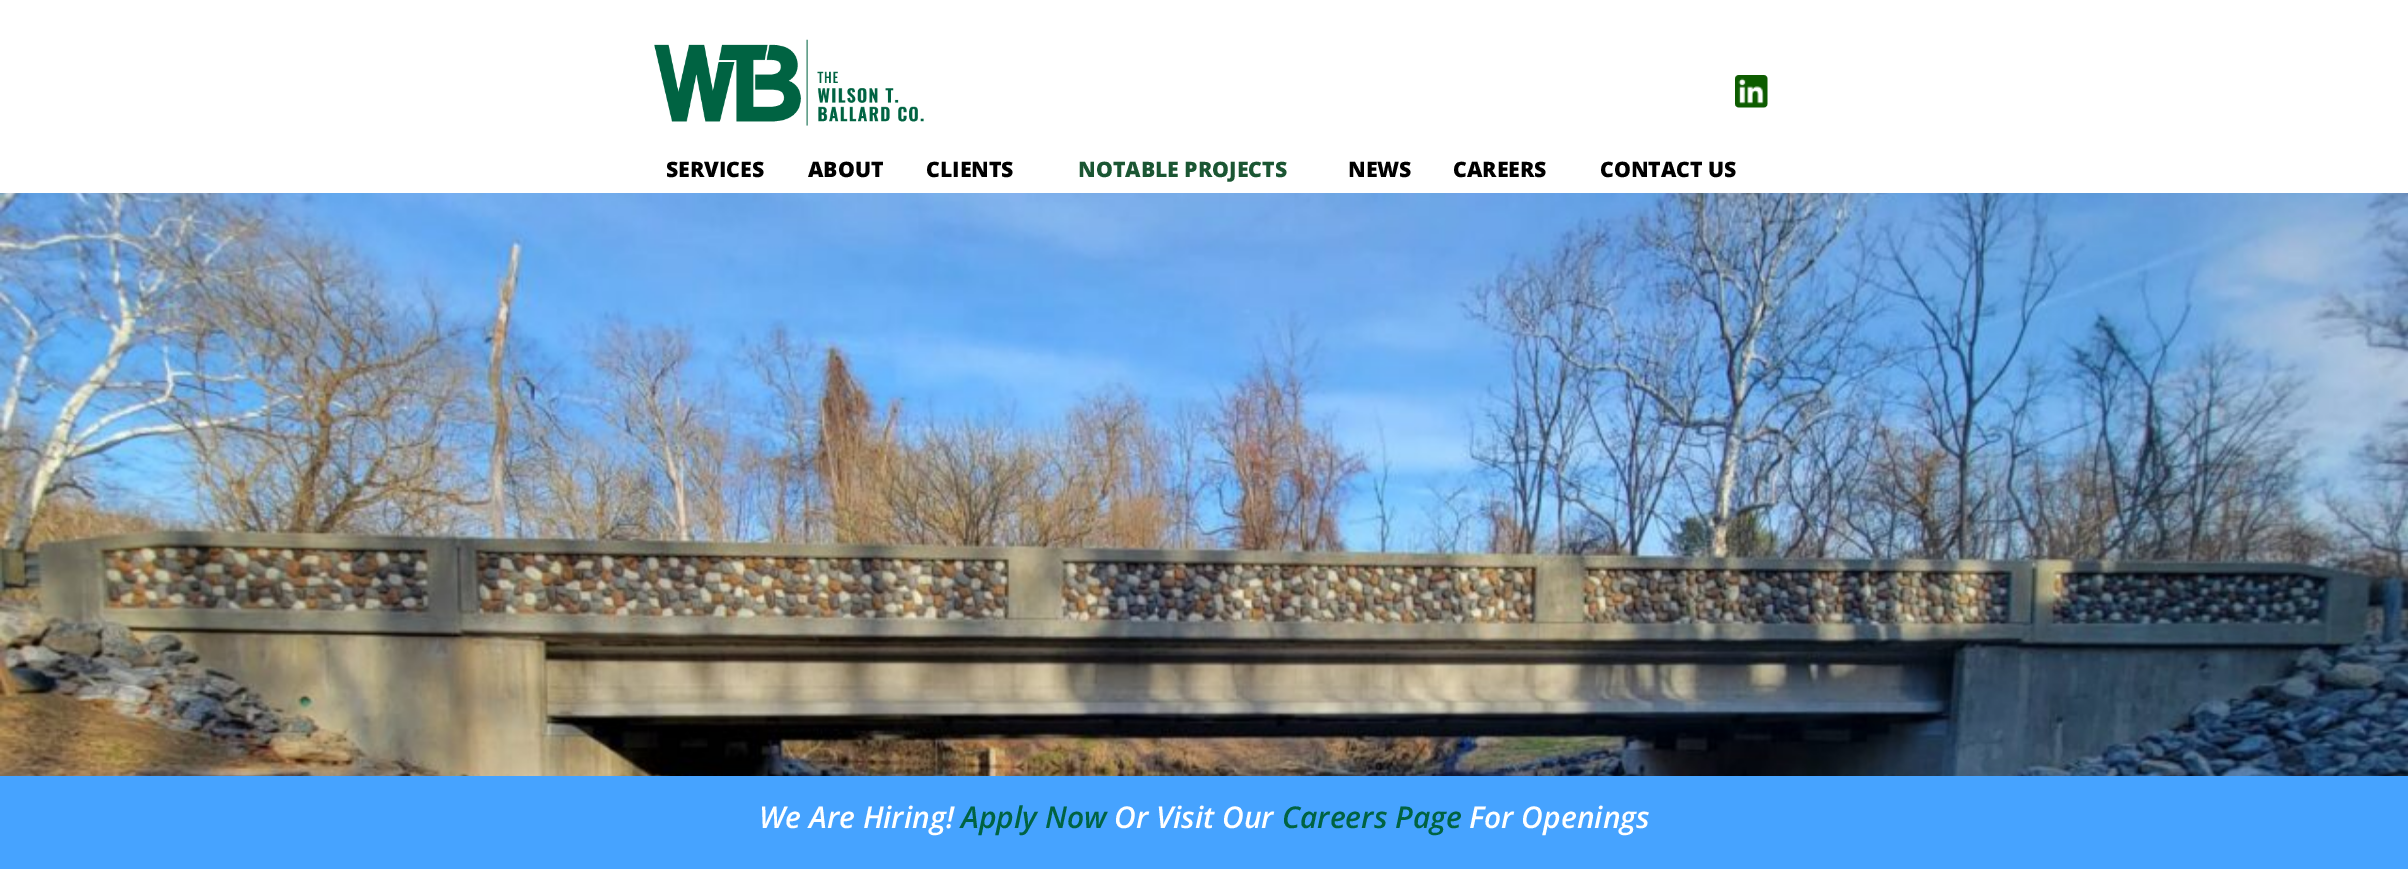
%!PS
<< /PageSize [2408 869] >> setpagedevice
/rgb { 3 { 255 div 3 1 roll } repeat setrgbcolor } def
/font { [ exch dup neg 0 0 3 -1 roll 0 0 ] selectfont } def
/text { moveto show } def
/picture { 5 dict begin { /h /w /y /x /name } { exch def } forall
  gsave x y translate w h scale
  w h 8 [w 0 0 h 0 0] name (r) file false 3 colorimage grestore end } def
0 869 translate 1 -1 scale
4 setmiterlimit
255 255 255 rgb
0 0 2408 869 rectfill
(img_01.rgb) 654 39 270 87 picture
(img_02.rgb) 1735 75 33 33 picture
(img_03.rgb) 0 193 2408 583 picture
70 163 255 rgb
0 776 2408 93 rectfill
/OpenSans-ExtraBold 21.25 font
0 0 0 rgb
(SERVICES) 666 177 text
(ABOUT) 808 177 text
(CLIENTS) 926 177 text
27 86 51 rgb
(NOTABLE PROJECTS) 1078 177 text
0 0 0 rgb
(NEWS) 1348 177 text
(CAREERS) 1453 177 text
(CONTACT US) 1600 177 text
/OpenSans-SemiBoldItalic 30 font
255 255 255 rgb
(We Are Hiring!) 759 828 text
0 99 66 rgb
(Apply Now) 961 828 text
255 255 255 rgb
(Or Visit Our) 1114 828 text
0 99 66 rgb
(Careers Page) 1282 828 text
255 255 255 rgb
(For Openings) 1469 828 text
showpage
